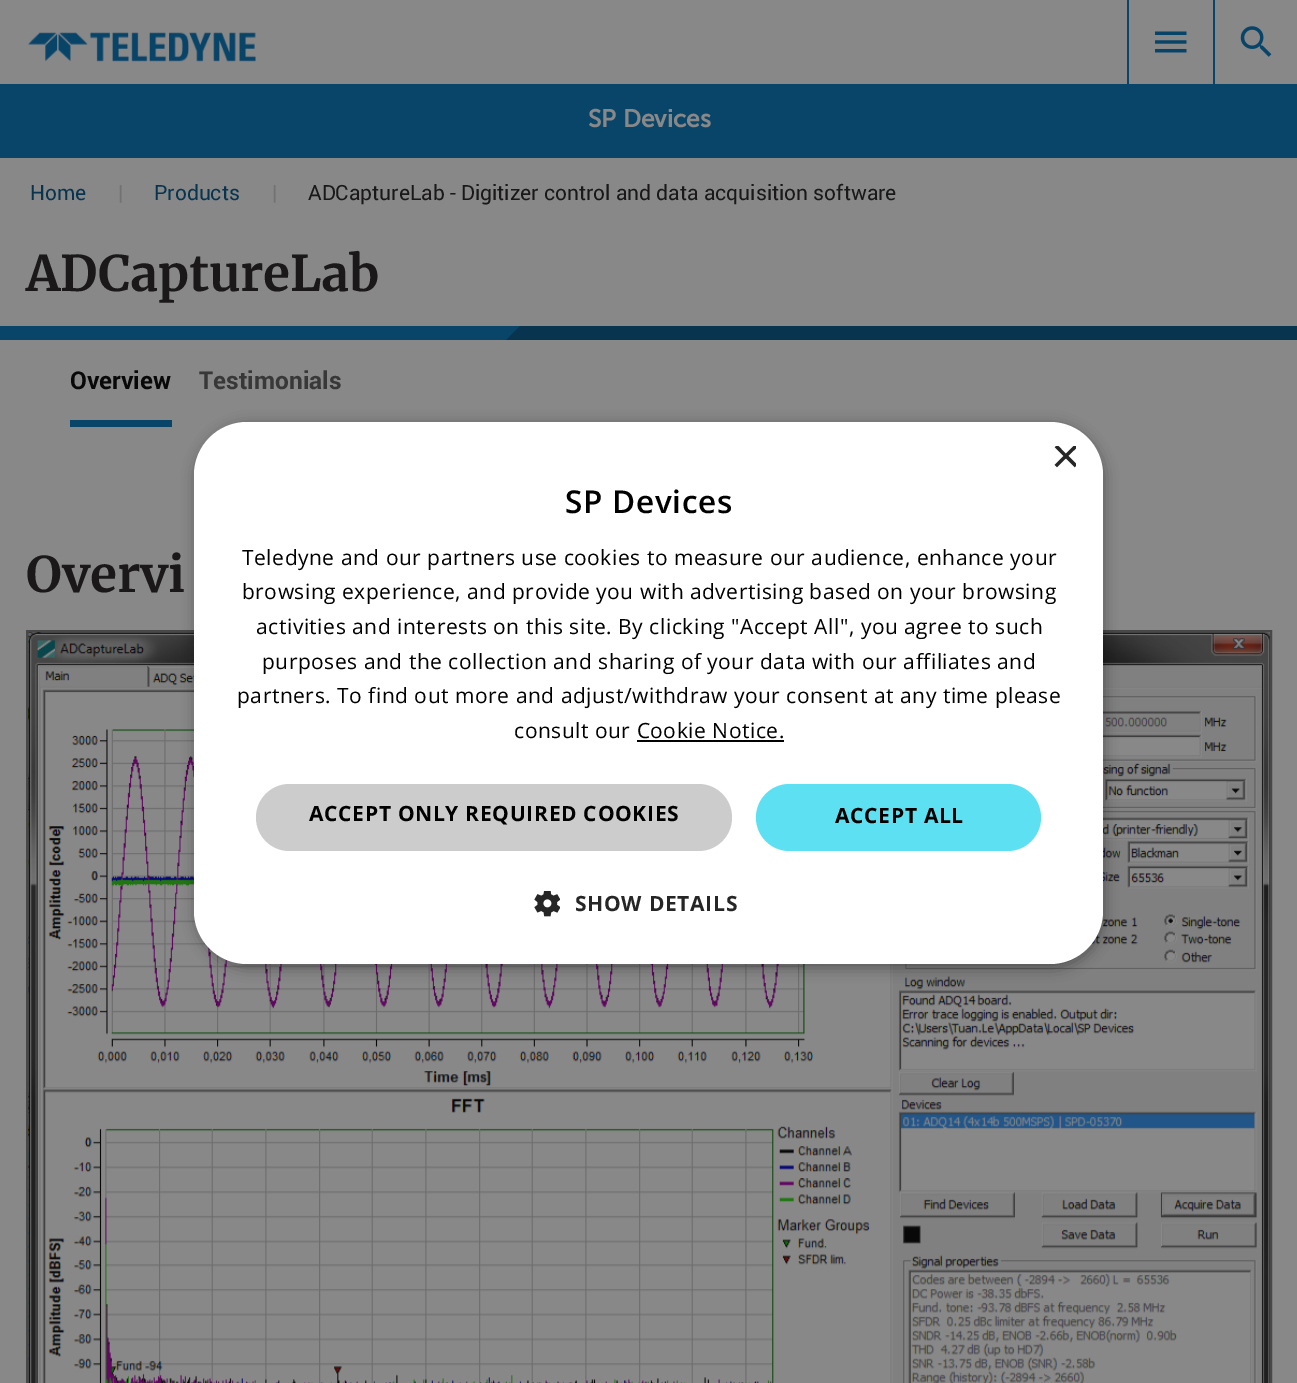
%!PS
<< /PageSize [1297 1383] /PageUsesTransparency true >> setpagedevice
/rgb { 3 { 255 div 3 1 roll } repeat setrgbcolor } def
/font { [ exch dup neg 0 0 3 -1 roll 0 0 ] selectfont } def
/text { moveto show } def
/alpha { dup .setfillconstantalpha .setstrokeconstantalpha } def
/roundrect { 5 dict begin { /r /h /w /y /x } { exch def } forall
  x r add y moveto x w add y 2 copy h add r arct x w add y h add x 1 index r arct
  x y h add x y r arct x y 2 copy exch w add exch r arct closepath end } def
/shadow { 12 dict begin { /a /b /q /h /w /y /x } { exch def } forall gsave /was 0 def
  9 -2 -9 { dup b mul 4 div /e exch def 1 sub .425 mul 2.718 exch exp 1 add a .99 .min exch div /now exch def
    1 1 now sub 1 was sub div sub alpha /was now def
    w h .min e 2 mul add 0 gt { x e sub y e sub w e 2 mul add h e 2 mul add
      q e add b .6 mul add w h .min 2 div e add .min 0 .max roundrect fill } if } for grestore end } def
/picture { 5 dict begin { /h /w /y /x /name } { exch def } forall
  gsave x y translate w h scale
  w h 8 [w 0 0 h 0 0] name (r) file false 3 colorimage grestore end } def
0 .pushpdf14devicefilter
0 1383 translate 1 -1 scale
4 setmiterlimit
136 136 136 rgb
0 0 1297 1383 rectfill
(img_01.rgb) 28 32 228 30 picture
9 68 105 rgb
1213 0 2 84 rectfill
1127 0 2 84 rectfill
(img_02.rgb) 1155 31 32 22 picture
(img_03.rgb) 1240 26 32 31 picture
0 84 1297 74 rectfill
0 326 520 14 rectfill
9 52 79 rgb
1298 340 moveto -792 0 rlineto 14 -14 rlineto 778 0 rlineto closepath fill
9 68 105 rgb
70 420 102 7 rectfill
72 72 72 rgb
2 setlinewidth
27 631 1244 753 rectstroke
(img_04.rgb) 28 632 1242 751 picture
0 0 0 rgb
196 425 908 543 53 7 0.35 shadow
255 255 255 rgb
194 422 909 542 53 roundrect fill
0 0 0 rgb
637 740 147 2 rectfill
204 204 204 rgb
256 784 476 67 33.5 roundrect fill
92 224 242 rgb
756 784 285 67 33.5 roundrect fill
(img_05.rgb) 534 891 26 26 picture
/MuseoSans-Bold 24.5 font
136 136 136 rgb
(SP Devices) 588 127 text
/Roboto-Regular 21 font
9 52 79 rgb
(Home) 30 200 text
113 114 115 rgb
(|) 118 200 text
9 52 79 rgb
(Products) 154 200 text
113 114 115 rgb
(|) 272 200 text
26 24 25 rgb
(ADCaptureLab - Digitizer control and data acquisition software) 308 200 text
/Merriweather-Bold 49 font
(ADCaptureLab) 26 291 text
/Roboto-Bold 24.5 font
9 9 9 rgb
(Overview) 70 389 text
56 56 56 rgb
(Testimonials) 199 389 text
/Merriweather-Bold 49 font
26 24 25 rgb
(Overvi) 26 592 text
gsave
1050 446 26 27 rectclip
/LiberationSans-Regular 51 font
38 38 38 rgb
(×) 1051 473 text
grestore
/OpenSans-SemiBold 31.5 font
0 0 0 rgb
565 513 moveto 0.7 0 (SP Devices) ashow
/OpenSans-Regular 21 font
242 565 moveto 0.53 0 (Teledyne and our partners use cookies to measure our audience, enhance your) ashow
242 599 moveto 0.53 0 (browsing experience, and provide you with advertising based on your browsing) ashow
256 634 moveto 0.53 0 (activities and interests on this site. By clicking "Accept All", you agree to such) ashow
262 669 moveto 0.53 0 (purposes and the collection and sharing of your data with our affiliates and) ashow
237 703 moveto 0.53 0 (partners. To find out more and adjust/withdraw your consent at any time please) ashow
514 738 moveto 0.53 0 (consult our Cookie Notice.) ashow
/OpenSans-Bold 21 font
309 821 moveto 0.7 0 (ACCEPT ONLY REQUIRED COOKIES) ashow
835 823 moveto 0.7 0 (ACCEPT ALL) ashow
38 38 38 rgb
575 911 moveto 0.7 0 (SHOW DETAILS) ashow
.poppdf14devicefilter showpage
